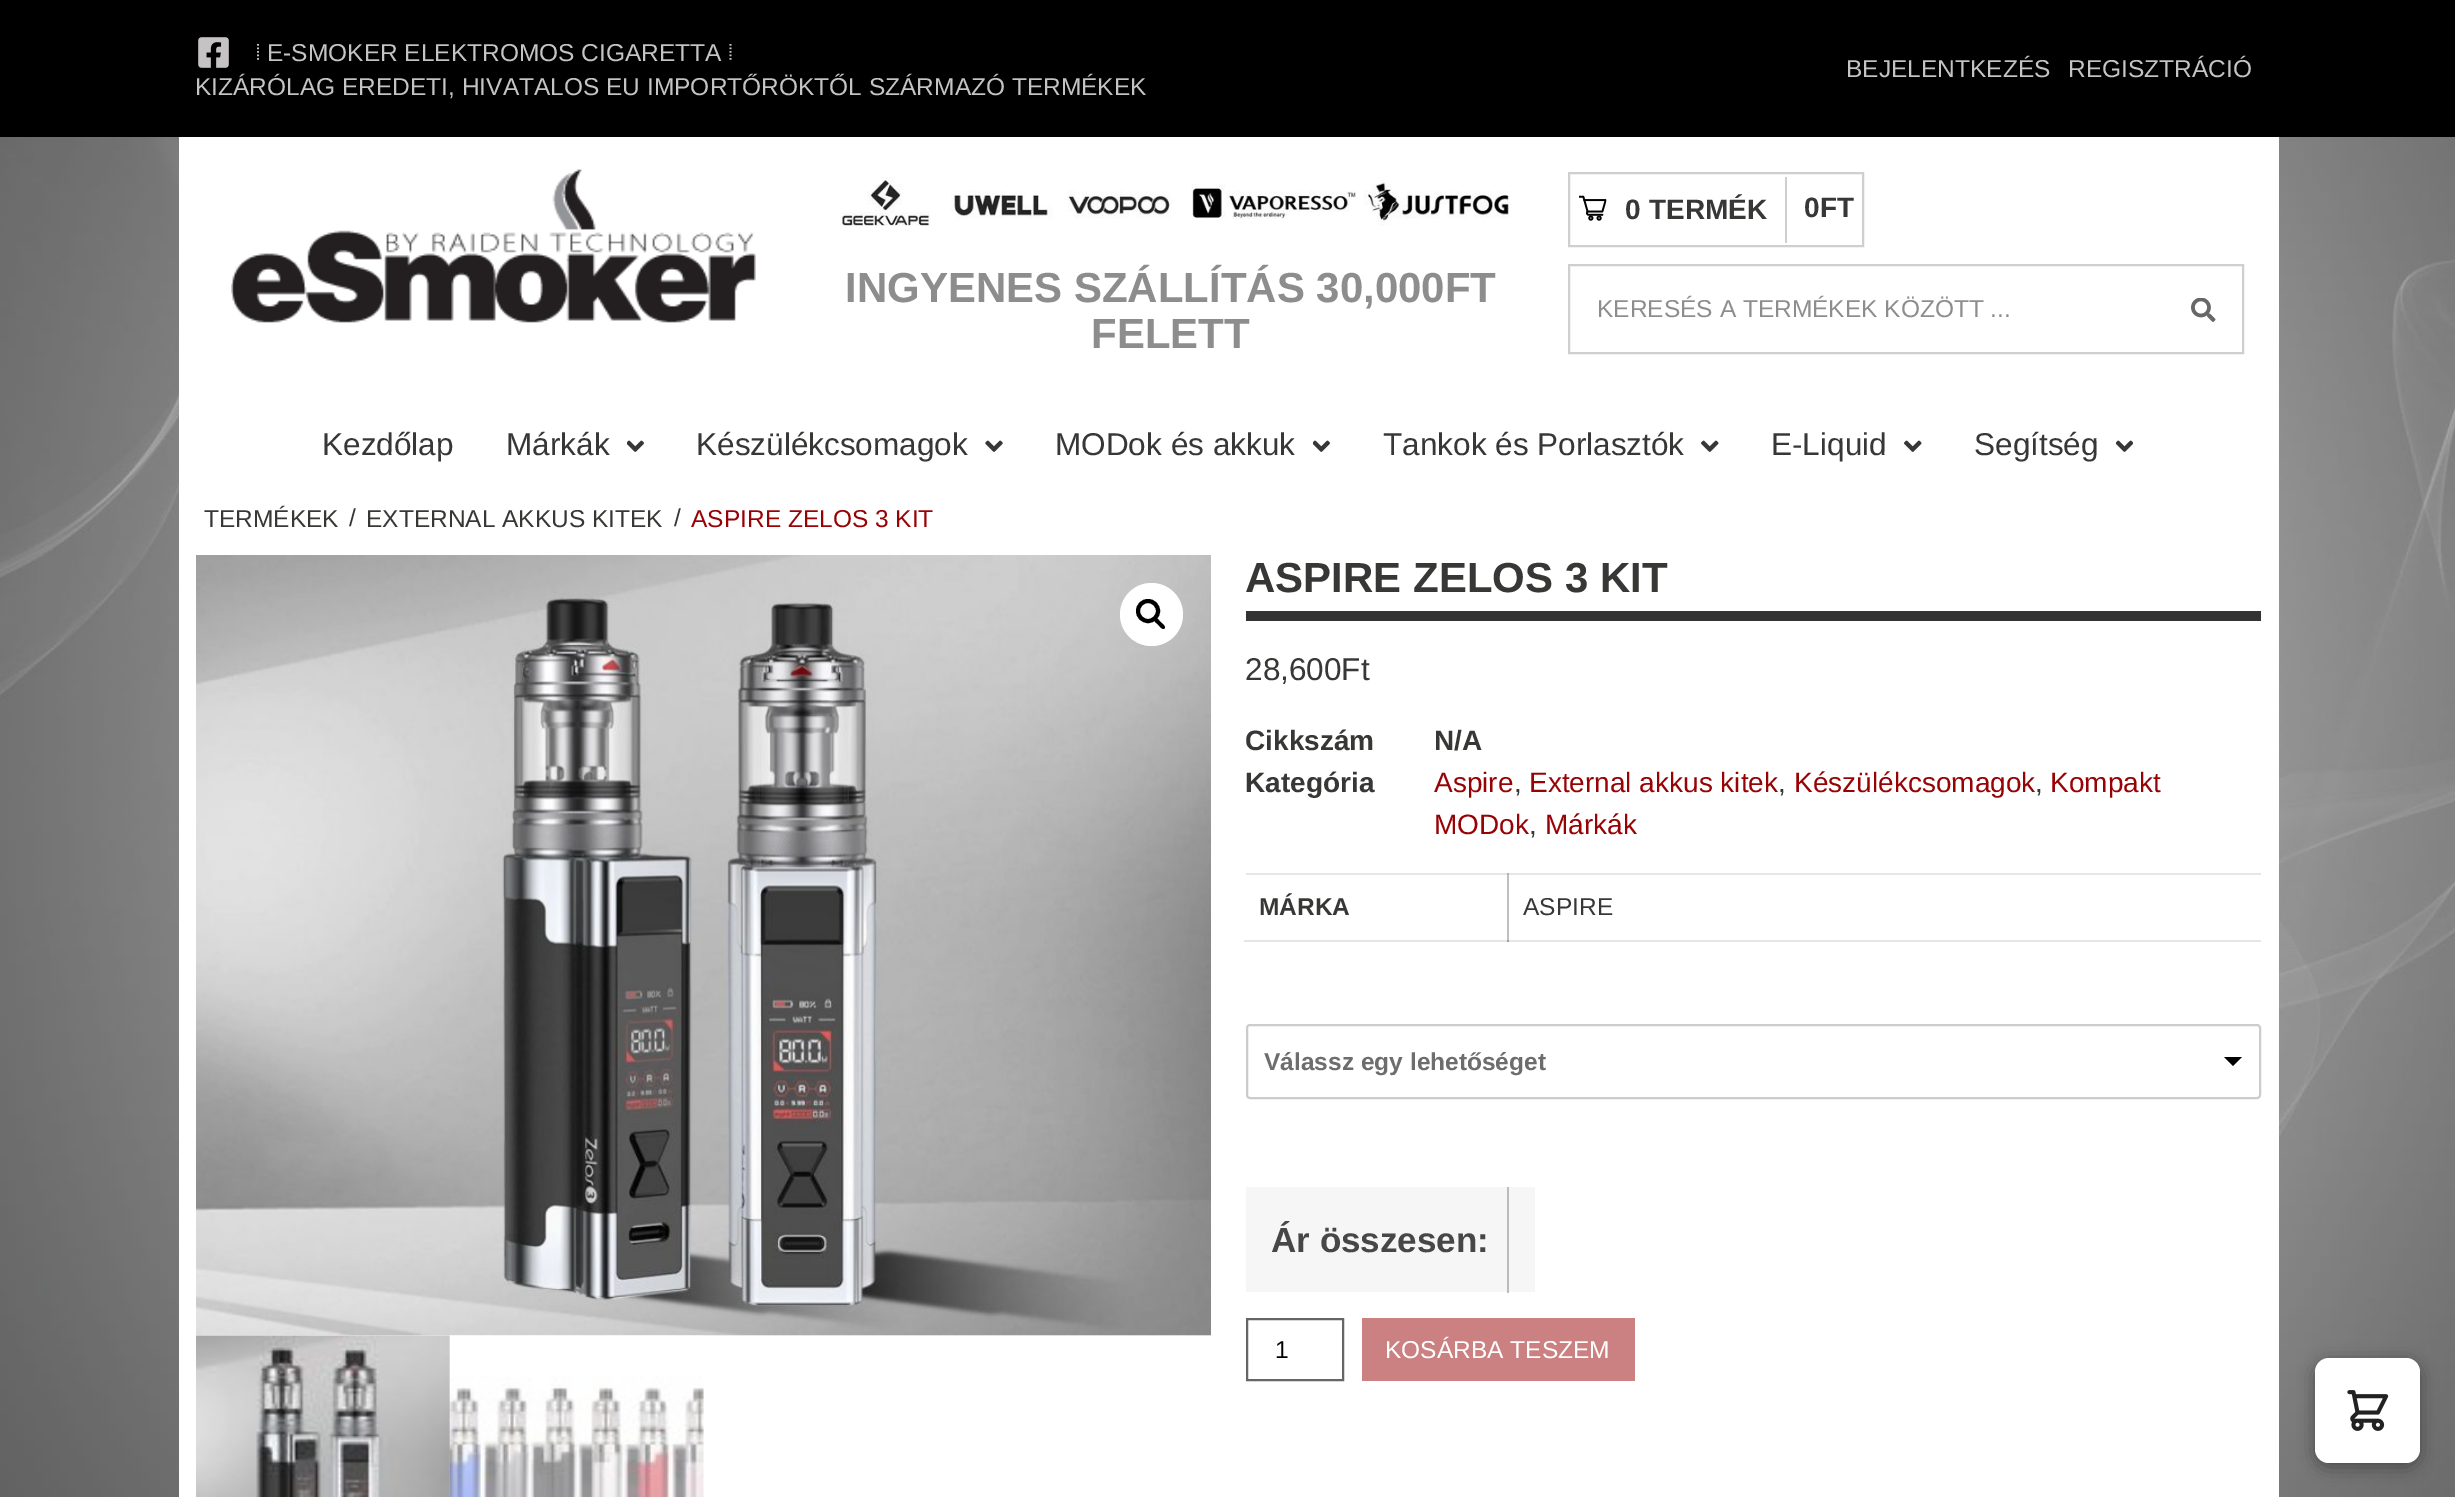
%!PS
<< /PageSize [2455 1497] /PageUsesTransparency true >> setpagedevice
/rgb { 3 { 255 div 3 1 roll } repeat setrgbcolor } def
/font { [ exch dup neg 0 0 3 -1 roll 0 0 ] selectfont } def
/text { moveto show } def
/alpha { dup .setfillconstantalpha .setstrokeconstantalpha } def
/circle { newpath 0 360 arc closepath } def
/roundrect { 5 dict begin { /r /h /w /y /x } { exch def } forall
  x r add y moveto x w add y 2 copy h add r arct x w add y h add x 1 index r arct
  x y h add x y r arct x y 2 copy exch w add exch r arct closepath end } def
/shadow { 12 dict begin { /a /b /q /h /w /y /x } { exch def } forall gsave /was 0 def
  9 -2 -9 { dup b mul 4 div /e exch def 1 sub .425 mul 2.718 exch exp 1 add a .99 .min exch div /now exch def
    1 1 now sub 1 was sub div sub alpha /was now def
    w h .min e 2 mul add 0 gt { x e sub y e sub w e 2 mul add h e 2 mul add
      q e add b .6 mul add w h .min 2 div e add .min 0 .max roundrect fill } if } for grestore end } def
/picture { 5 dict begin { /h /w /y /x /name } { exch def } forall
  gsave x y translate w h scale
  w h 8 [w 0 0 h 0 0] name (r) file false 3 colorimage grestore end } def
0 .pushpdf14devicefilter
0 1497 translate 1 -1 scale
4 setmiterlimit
255 255 255 rgb
0 0 2455 1497 rectfill
(img_01.rgb) 0 137 2455 1360 picture
0 0 0 rgb
0 0 2455 137 rectfill
(img_02.rgb) 198 37 31 31 picture
197 195 195 rgb
1.8 setlinewidth
[1.75 1.75] 0 setdash
258 44 moveto 0 17 rlineto stroke
730.5 44 moveto 0 17 rlineto stroke
255 255 255 rgb
179 137 2100 400 rectfill
(img_03.rgb) 231 169 525 154 picture
(img_04.rgb) 840 177 669 49 picture
207 207 207 rgb
2 setlinewidth
[] 0 setdash
1569 173 294 73 rectstroke
(img_05.rgb) 1579 195 28 26 picture
1785 177 2 66 rectfill
1569 265 674 88 rectstroke
(img_06.rgb) 2191 298 25 24 picture
(img_07.rgb) 627 440 17 12 picture
(img_08.rgb) 985 440 18 12 picture
(img_07.rgb) 1313 440 17 12 picture
(img_09.rgb) 1701 440 18 12 picture
(img_09.rgb) 1904 440 18 12 picture
(img_10.rgb) 2116 440 17 12 picture
255 255 255 rgb
179 537 2100 960 rectfill
(img_12.rgb) 196 1335 254 162 picture
(img_11.rgb) 196 555 1015 781 picture
1151.5 614.5 31.5 circle fill
0 0 0 rgb
4 setlinewidth
1148 611 10 circle stroke
1154.5 618.5 moveto 2 -2 5 2.5 6 3.5 rcurveto 1 1 6 4.5 4 6.5 rcurveto -2 2 -5.5 -3 -6.5 -4 rcurveto -1 -1 -5.5 -4 -3.5 -6 rcurveto closepath fill
(img_13.rgb) 449 1335 255 162 picture
51 51 51 rgb
1246 611 1015 10 rectfill
230 230 230 rgb
1246 873 1015 2 rectfill
1507 940 754 2 rectfill
0.5 alpha
128 128 128 rgb
1507 873 2 69 rectfill
0.1 alpha
0 0 0 rgb
1244 940 265 2 rectfill
1 alpha
204 204 204 rgb
2 setlinewidth
1247 1025 1013 73 3 roundrect stroke
0 0 0 rgb
2224 1057 moveto 18 0 rlineto -9 9 rlineto closepath fill
246 246 246 rgb
1246 1187 289 105 rectfill
0.5 alpha
128 128 128 rgb
1507 1187 2 106 rectfill
1 alpha
102 102 102 rgb
1247 1319 96 61 rectstroke
203 129 130 rgb
1362 1318 273 63 rectfill
0 0 0 rgb
2315 1362 105 105 14 9 0.37 shadow
255 255 255 rgb
2315 1358 105 105 14 roundrect fill
(img_14.rgb) 2347 1390 42 41 picture
/LiberationSans-Regular 24.5 font
197 195 195 rgb
(E-SMOKER ELEKTROMOS CIGARETTA) 267 61 text
(KIZÁRÓLAG EREDETI, HIVATALOS EU IMPORTŐRÖKTŐL SZÁRMAZÓ TERMÉKEK) 195 95 text
(BEJELENTKEZÉS) 1846 77 text
(REGISZTRÁCIÓ) 2068 77 text
/LiberationSans-Bold 42 font
141 141 141 rgb
(INGYENES SZÁLLÍTÁS 30,000FT) 845 302 text
(FELETT) 1091 348 text
/LiberationSans-Bold 28 font
55 55 54 rgb
(0) 1625 219 text
(TERMÉK) 1649 219 text
(0FT) 1804 217 text
/LiberationSans-Regular 24.5 font
141 141 141 rgb
(KERESÉS A TERMÉKEK KÖZÖTT ...) 1597 317 text
/LiberationSans-Regular 31.5 font
55 55 54 rgb
(Kezdőlap) 322 455 text
(Márkák) 506 455 text
(Készülékcsomagok) 696 455 text
(MODok és akkuk) 1055 455 text
(Tankok és Porlasztók) 1383 455 text
(E-Liquid) 1771 455 text
(Segítség) 1974 455 text
/LiberationSans-Regular 24.5 font
(TERMÉKEK) 204 527 text
(/) 349 526 text
(EXTERNAL AKKUS KITEK) 366 527 text
(/) 674 526 text
151 2 5 rgb
(ASPIRE ZELOS 3 KIT) 691 527 text
/LiberationSans-Bold 42 font
55 55 54 rgb
(ASPIRE ZELOS 3 KIT) 1245 592 text
/LiberationSans-Regular 31.5 font
(28,600Ft) 1245 680 text
/LiberationSans-Bold 28 font
(Cikkszám) 1245 750 text
(N/A) 1434 750 text
(Kategória) 1245 792 text
/LiberationSans-Regular 28 font
151 2 5 rgb
(Aspire) 1434 792 text
55 55 54 rgb
(,) 1514 792 text
151 2 5 rgb
(External akkus kitek) 1529 792 text
55 55 54 rgb
(,) 1778 792 text
151 2 5 rgb
(Készülékcsomagok) 1794 792 text
55 55 54 rgb
(,) 2035 792 text
151 2 5 rgb
(Kompakt) 2050 792 text
(MODok) 1434 834 text
55 55 54 rgb
(,) 1529 834 text
151 2 5 rgb
(Márkák) 1545 834 text
/LiberationSans-Bold 24.5 font
55 55 54 rgb
(MÁRKA) 1259 915 text
/LiberationSans-Regular 24.5 font
(ASPIRE) 1523 915 text
/LiberationSans-Bold 24.5 font
109 109 109 rgb
(Válassz egy lehetőséget) 1264 1070 text
/LiberationSans-Bold 35 font
71 71 71 rgb
(Ár összesen:) 1271 1252 text
/LiberationSans-Regular 24.5 font
0 0 0 rgb
(1) 1275 1358 text
255 255 255 rgb
(KOSÁRBA TESZEM) 1385 1358 text
.poppdf14devicefilter showpage
